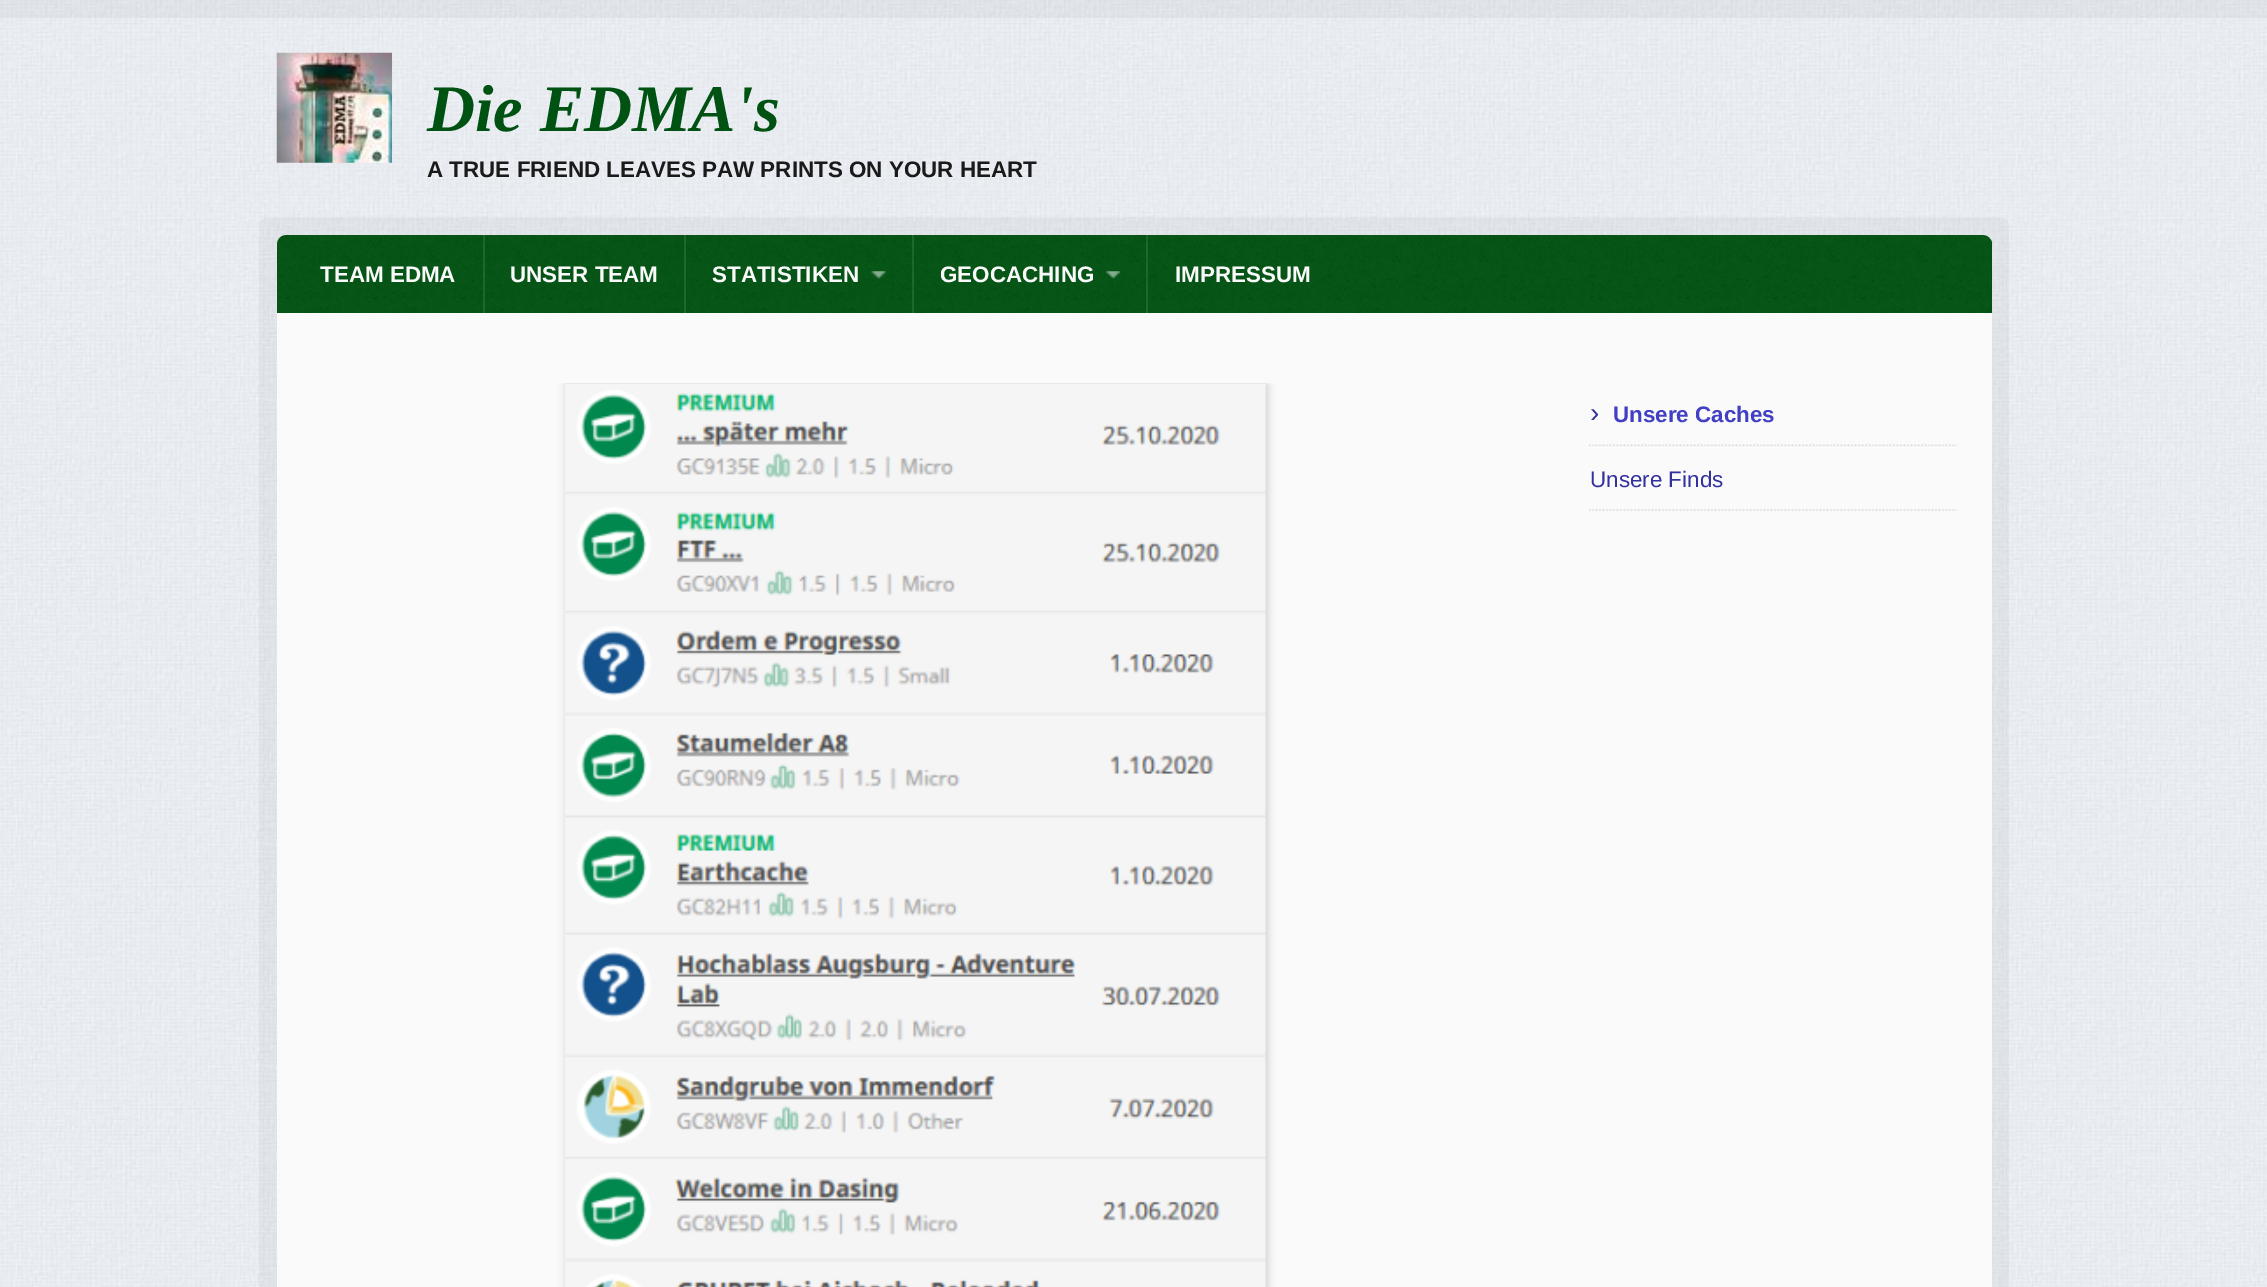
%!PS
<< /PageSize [2267 1287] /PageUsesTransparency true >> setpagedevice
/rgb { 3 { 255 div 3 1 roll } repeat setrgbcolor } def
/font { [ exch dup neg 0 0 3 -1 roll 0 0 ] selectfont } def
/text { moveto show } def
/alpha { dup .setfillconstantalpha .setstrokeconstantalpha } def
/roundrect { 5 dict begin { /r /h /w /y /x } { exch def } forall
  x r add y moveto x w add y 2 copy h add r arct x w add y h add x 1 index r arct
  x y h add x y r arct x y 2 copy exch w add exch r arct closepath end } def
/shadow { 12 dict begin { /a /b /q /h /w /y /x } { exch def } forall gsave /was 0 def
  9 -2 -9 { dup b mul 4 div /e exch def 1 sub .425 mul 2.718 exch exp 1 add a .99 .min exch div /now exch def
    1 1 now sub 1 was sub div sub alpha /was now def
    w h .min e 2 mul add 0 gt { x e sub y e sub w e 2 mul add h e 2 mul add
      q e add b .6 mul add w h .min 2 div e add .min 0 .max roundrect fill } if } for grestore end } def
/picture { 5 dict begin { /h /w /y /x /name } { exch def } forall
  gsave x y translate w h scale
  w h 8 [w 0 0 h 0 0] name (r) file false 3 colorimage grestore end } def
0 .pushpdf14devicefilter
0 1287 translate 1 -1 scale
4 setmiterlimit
255 255 255 rgb
0 0 2267 1287 rectfill
(img_01.rgb) 0 0 2267 1287 picture
0.04 alpha
0 0 0 rgb
0 0 2267 18 rectfill
1 alpha
(img_02.rgb) 276 52 116 111 picture
(img_03.rgb) 259 217 1750 1070 picture
0 82 18 rgb
286 235 moveto 1697 0 rlineto 5 0 9 4 9 9 rcurveto 0 69 rlineto -1715 0 rlineto 0 -69 rlineto 0 -5 4 -9 9 -9 rcurveto closepath fill
(img_04.rgb) 277 235 1714 78 picture
0.1 alpha
255 255 255 rgb
483 235 2 78 rectfill
684 235 2 78 rectfill
1 alpha
(img_05.rgb) 871 271 15 8 picture
0.1 alpha
912 235 2 78 rectfill
1 alpha
(img_06.rgb) 1106 271 14 8 picture
0.1 alpha
1146 235 2 78 rectfill
1 alpha
250 250 250 rgb
277 313 1715 974 rectfill
gsave
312 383 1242 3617 rectclip
0 0 0 rgb
567 385 700 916 0 4.5 0.2 shadow
grestore
(img_07.rgb) 565 384 701 903 picture
(img_08.rgb) 1589 444 368 4 picture
(img_09.rgb) 1589 509 368 3 picture
/LiberationSerif-BoldItalic 66.5 font
0 82 18 rgb
(Die EDMA's) 427 131 text
/LiberationSans-Bold 22.4 font
26 26 26 rgb
(A TRUE FRIEND LEAVES PAW PRINTS ON YOUR HEART) 427 177 text
250 250 250 rgb
(TEAM EDMA) 320 282 text
(UNSER TEAM) 510 282 text
(STATISTIKEN) 712 282 text
(GEOCACHING) 940 282 text
(IMPRESSUM) 1175 282 text
/LiberationSans-Regular 28 font
51 49 158 rgb
(›) 1590 422 text
/LiberationSans-Bold 22.4 font
65 63 195 rgb
(Unsere Caches) 1613 422 text
/LiberationSans-Regular 22.4 font
51 49 158 rgb
(Unsere Finds) 1590 487 text
.poppdf14devicefilter showpage
